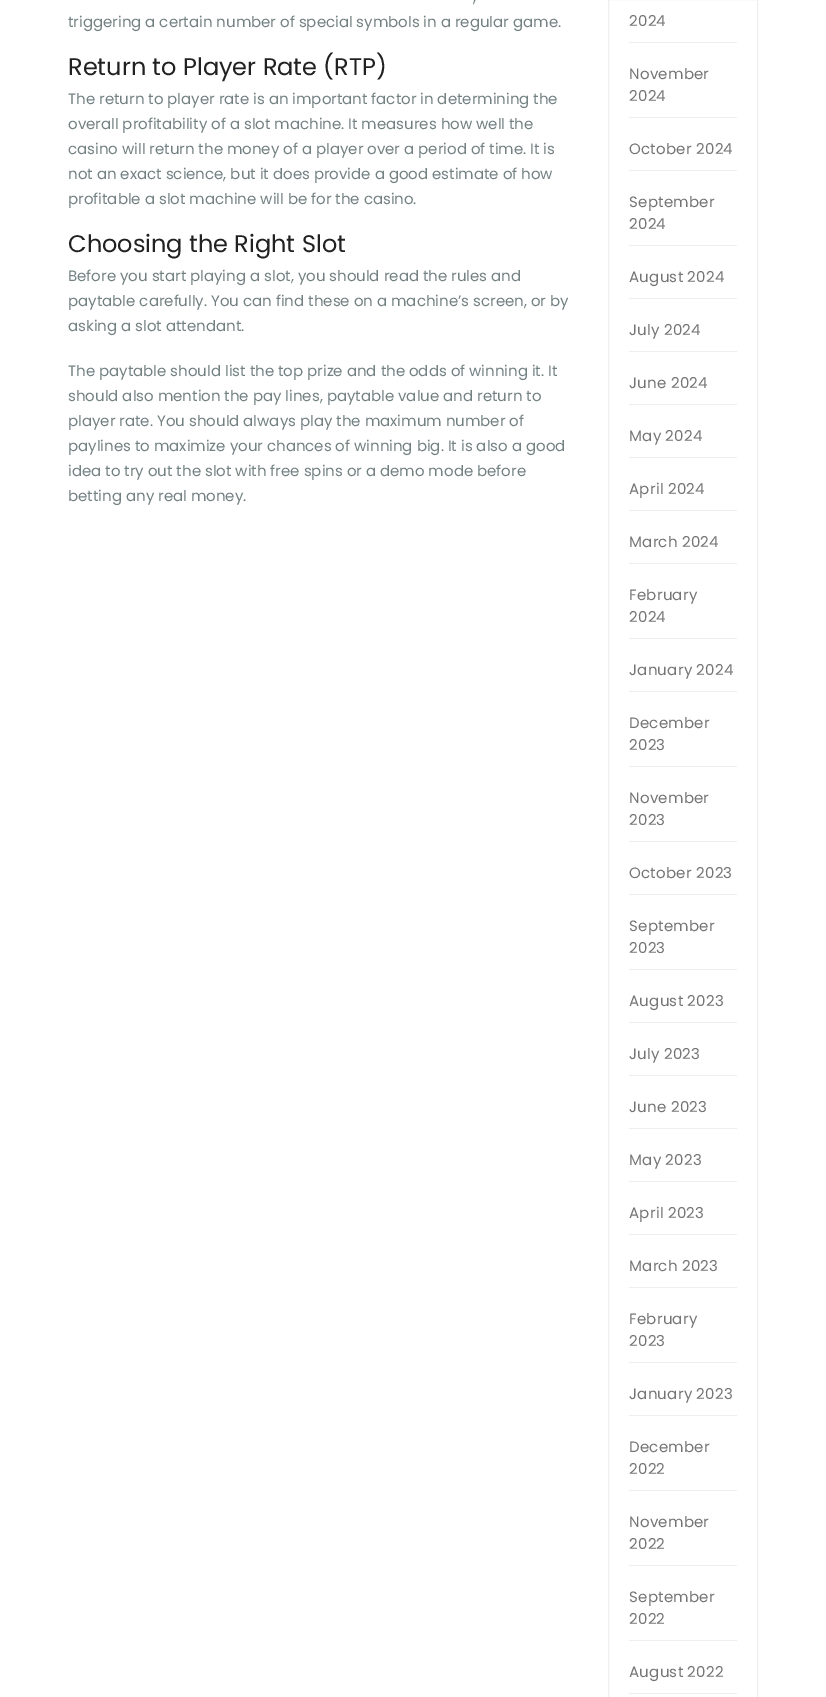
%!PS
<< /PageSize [826 1697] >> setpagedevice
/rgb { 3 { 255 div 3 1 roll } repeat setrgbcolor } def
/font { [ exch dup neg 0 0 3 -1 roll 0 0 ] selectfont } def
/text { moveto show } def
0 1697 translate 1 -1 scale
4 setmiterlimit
255 255 255 rgb
0 0 826 1697 rectfill
238 238 238 rgb
608.5 -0.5 149 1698 rectstroke
629 42 108 1 rectfill
629 117 108 1 rectfill
629 170 108 1 rectfill
629 245 108 1 rectfill
629 298 108 1 rectfill
629 351 108 1 rectfill
629 404 108 1 rectfill
629 457 108 1 rectfill
629 510 108 1 rectfill
629 563 108 1 rectfill
629 638 108 1 rectfill
629 691 108 1 rectfill
629 766 108 1 rectfill
629 841 108 1 rectfill
629 894 108 1 rectfill
629 969 108 1 rectfill
629 1022 108 1 rectfill
629 1075 108 1 rectfill
629 1128 108 1 rectfill
629 1181 108 1 rectfill
629 1234 108 1 rectfill
629 1287 108 1 rectfill
629 1362 108 1 rectfill
629 1415 108 1 rectfill
629 1490 108 1 rectfill
629 1565 108 1 rectfill
629 1640 108 1 rectfill
629 1693 108 1 rectfill
/Poppins-Regular 15 font
116 129 130 rgb
(,) 473 2 text
(triggering a certain number of special symbols in a regular game.) 68 27 text
/Poppins-Regular 24 font
33 33 33 rgb
(Return to Player Rate \(RTP\)) 68 75 text
/Poppins-Regular 15 font
116 129 130 rgb
(The return to player rate is an important factor in determining the) 68 104 text
(overall profitability of a slot machine. It measures how well the) 68 129 text
(casino will return the money of a player over a period of time. It is) 68 154 text
(not an exact science, but it does provide a good estimate of how) 68 179 text
(profitable a slot machine will be for the casino.) 68 204 text
/Poppins-Regular 24 font
33 33 33 rgb
(Choosing the Right Slot) 68 252 text
/Poppins-Regular 15 font
116 129 130 rgb
(Before you start playing a slot, you should read the rules and) 68 281 text
(paytable carefully. You can find these on a machine’s screen, or by) 68 306 text
(asking a slot attendant.) 68 331 text
(The paytable should list the top prize and the odds of winning it. It) 68 376 text
(should also mention the pay lines, paytable value and return to) 68 401 text
(player rate. You should always play the maximum number of) 68 426 text
(paylines to maximize your chances of winning big. It is also a good) 68 451 text
(idea to try out the slot with free spins or a demo mode before) 68 476 text
(betting any real money.) 68 501 text
117 117 117 rgb
629 26 moveto 0.25 0 (2024) ashow
629 79 moveto 0.25 0 (November) ashow
629 101 moveto 0.25 0 (2024) ashow
629 154 moveto 0.25 0 (October 2024) ashow
629 207 moveto 0.25 0 (September) ashow
629 229 moveto 0.25 0 (2024) ashow
629 282 moveto 0.25 0 (August 2024) ashow
629 335 moveto 0.25 0 (July 2024) ashow
629 388 moveto 0.25 0 (June 2024) ashow
629 441 moveto 0.25 0 (May 2024) ashow
629 494 moveto 0.25 0 (April 2024) ashow
629 547 moveto 0.25 0 (March 2024) ashow
629 600 moveto 0.25 0 (February) ashow
629 622 moveto 0.25 0 (2024) ashow
629 675 moveto 0.25 0 (January 2024) ashow
629 728 moveto 0.25 0 (December) ashow
629 750 moveto 0.25 0 (2023) ashow
629 803 moveto 0.25 0 (November) ashow
629 825 moveto 0.25 0 (2023) ashow
629 878 moveto 0.25 0 (October 2023) ashow
629 931 moveto 0.25 0 (September) ashow
629 953 moveto 0.25 0 (2023) ashow
629 1006 moveto 0.25 0 (August 2023) ashow
629 1059 moveto 0.25 0 (July 2023) ashow
629 1112 moveto 0.25 0 (June 2023) ashow
629 1165 moveto 0.25 0 (May 2023) ashow
629 1218 moveto 0.25 0 (April 2023) ashow
629 1271 moveto 0.25 0 (March 2023) ashow
629 1324 moveto 0.25 0 (February) ashow
629 1346 moveto 0.25 0 (2023) ashow
629 1399 moveto 0.25 0 (January 2023) ashow
629 1452 moveto 0.25 0 (December) ashow
629 1474 moveto 0.25 0 (2022) ashow
629 1527 moveto 0.25 0 (November) ashow
629 1549 moveto 0.25 0 (2022) ashow
629 1602 moveto 0.25 0 (September) ashow
629 1624 moveto 0.25 0 (2022) ashow
629 1677 moveto 0.25 0 (August 2022) ashow
showpage
